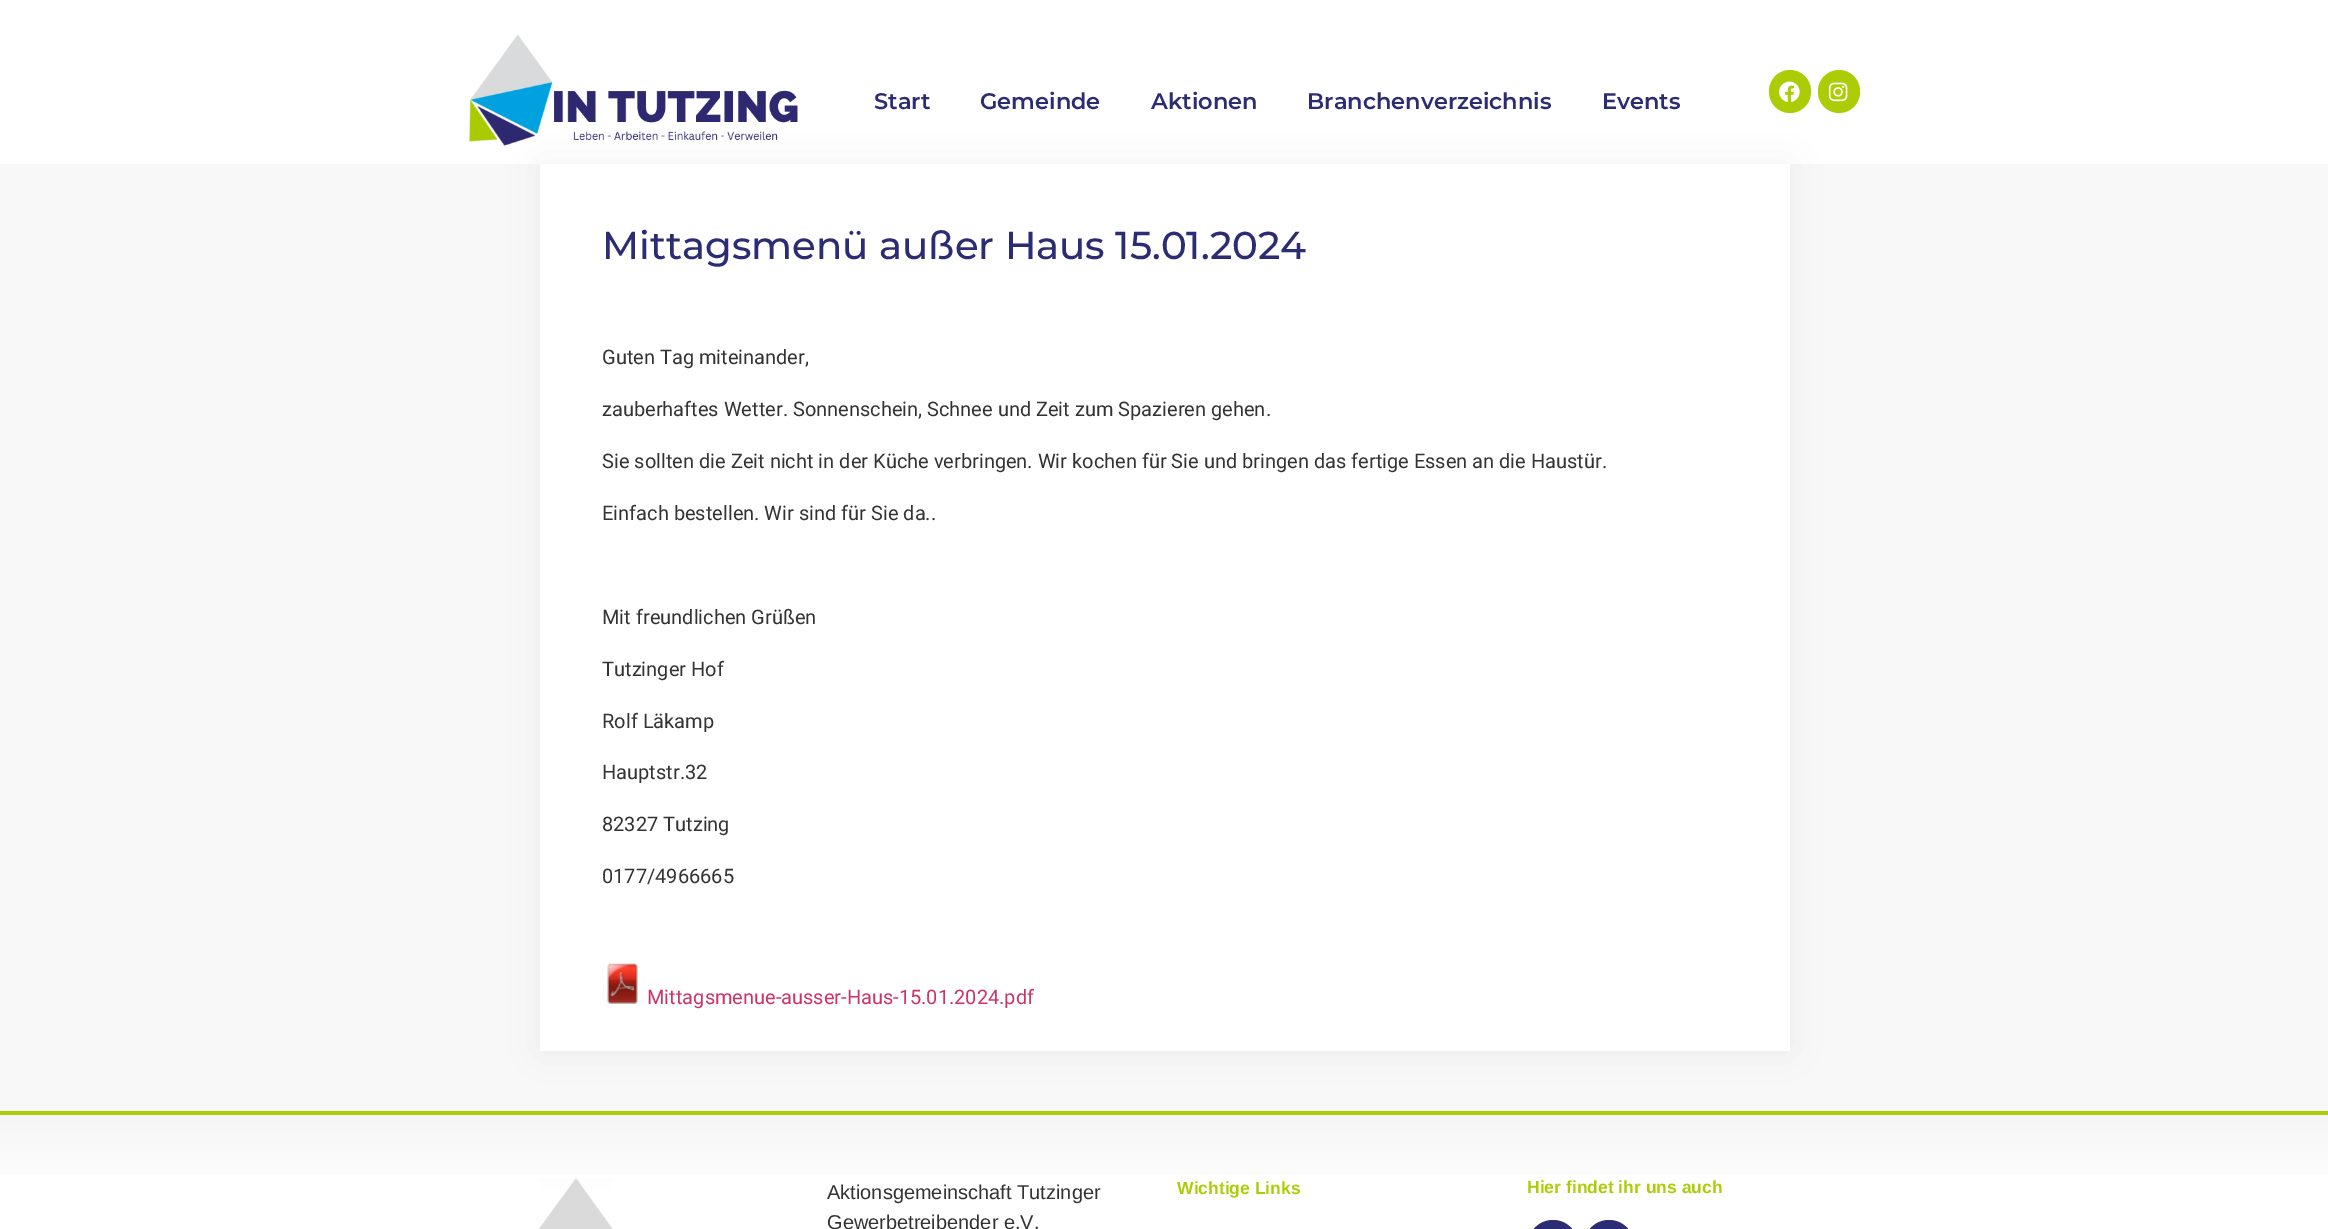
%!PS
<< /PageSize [2328 1229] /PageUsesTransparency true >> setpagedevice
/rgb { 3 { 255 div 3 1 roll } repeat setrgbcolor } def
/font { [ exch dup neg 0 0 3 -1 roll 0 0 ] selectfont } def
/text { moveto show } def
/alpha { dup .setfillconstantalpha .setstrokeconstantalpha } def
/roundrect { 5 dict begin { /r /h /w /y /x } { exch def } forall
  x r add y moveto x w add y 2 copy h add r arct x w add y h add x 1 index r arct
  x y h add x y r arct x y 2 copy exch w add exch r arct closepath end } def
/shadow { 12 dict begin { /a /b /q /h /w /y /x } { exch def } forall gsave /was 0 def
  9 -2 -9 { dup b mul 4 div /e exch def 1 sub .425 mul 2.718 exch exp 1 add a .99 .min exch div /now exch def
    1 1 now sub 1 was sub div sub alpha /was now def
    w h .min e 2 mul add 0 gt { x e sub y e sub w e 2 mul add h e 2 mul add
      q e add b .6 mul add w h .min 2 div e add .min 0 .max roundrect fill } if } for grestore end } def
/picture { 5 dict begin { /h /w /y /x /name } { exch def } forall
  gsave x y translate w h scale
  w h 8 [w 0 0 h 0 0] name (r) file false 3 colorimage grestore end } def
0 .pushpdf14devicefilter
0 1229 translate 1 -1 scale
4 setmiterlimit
255 255 255 rgb
0 0 2328 1229 rectfill
(img_01.rgb) 469 34 329 112 picture
172 204 6 rgb
1769 70 42 43 21 roundrect fill
(img_02.rgb) 1779 81 21 21 picture
1818 70 42 43 21 roundrect fill
(img_03.rgb) 1828 82 20 20 picture
248 248 248 rgb
0 164 2328 947 rectfill
0 0 0 rgb
540 164 1250 887 0 19 0.05 shadow
255 255 255 rgb
540 164 1250 887 rectfill
(img_04.rgb) 607 963 31 41 picture
gsave 0 1115 moveto 2328 0 rlineto 0 59 rlineto -2328 0 rlineto closepath clip newpath
<< /ShadingType 2 /ColorSpace /DeviceRGB /Coords [1164 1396 1164 1115] /Extend [true true] /Function << /FunctionType 3 /Domain [0 1] /Functions [<< /FunctionType 2 /Domain [0 1] /C0 [1 1 1] /C1 [1 1 1] /N 1 >> << /FunctionType 2 /Domain [0 1] /C0 [1 1 1] /C1 [0.961 0.961 0.961] /N 1 >>] /Bounds [0.72] /Encode [0 1 0 1] >> >> shfill grestore
172 204 6 rgb
0 1111 2328 4 rectfill
(img_05.rgb) 539 1178 74 51 picture
44 44 116 rgb
1528 1220 50 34 25 roundrect fill
1584 1220 50 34 25 roundrect fill
/Montserrat-SemiBold 22.5 font
(Start) 874 109 text
(Gemeinde) 980 109 text
(Aktionen) 1151 109 text
(Branchenverzeichnis) 1307 109 text
(Events) 1602 109 text
/Montserrat-Medium 38.75 font
(Mittagsmenü außer Haus 15.01.2024) 602 259 text
/Roboto-Regular 20 font
51 51 51 rgb
(Guten Tag miteinander,) 602 364 text
(zauberhaftes Wetter. Sonnenschein, Schnee und Zeit zum Spazieren gehen.) 602 416 text
(Sie sollten die Zeit nicht in der Küche verbringen. Wir kochen für Sie und bringen das fertige Essen an die Haustür.) 602 468 text
(Einfach bestellen. Wir sind für Sie da..) 602 520 text
(Mit freundlichen Grüßen) 602 624 text
(Tutzinger Hof) 602 676 text
(Rolf Läkamp) 602 728 text
(Hauptstr.32) 602 779 text
(82327 Tutzing) 602 831 text
(0177/4966665) 602 883 text
204 51 102 rgb
(Mittagsmenue-ausser-Haus-15.01.2024.pdf) 647 1004 text
/LiberationSans-Regular 20 font
51 51 51 rgb
(Aktionsgemeinschaft Tutzinger) 827 1199 text
(Gewerbetreibender e.V.) 827 1229 text
/LiberationSans-Bold 17.5 font
172 204 6 rgb
(Wichtige Links) 1177 1194 text
(Hier findet ihr uns auch) 1527 1193 text
.poppdf14devicefilter showpage
